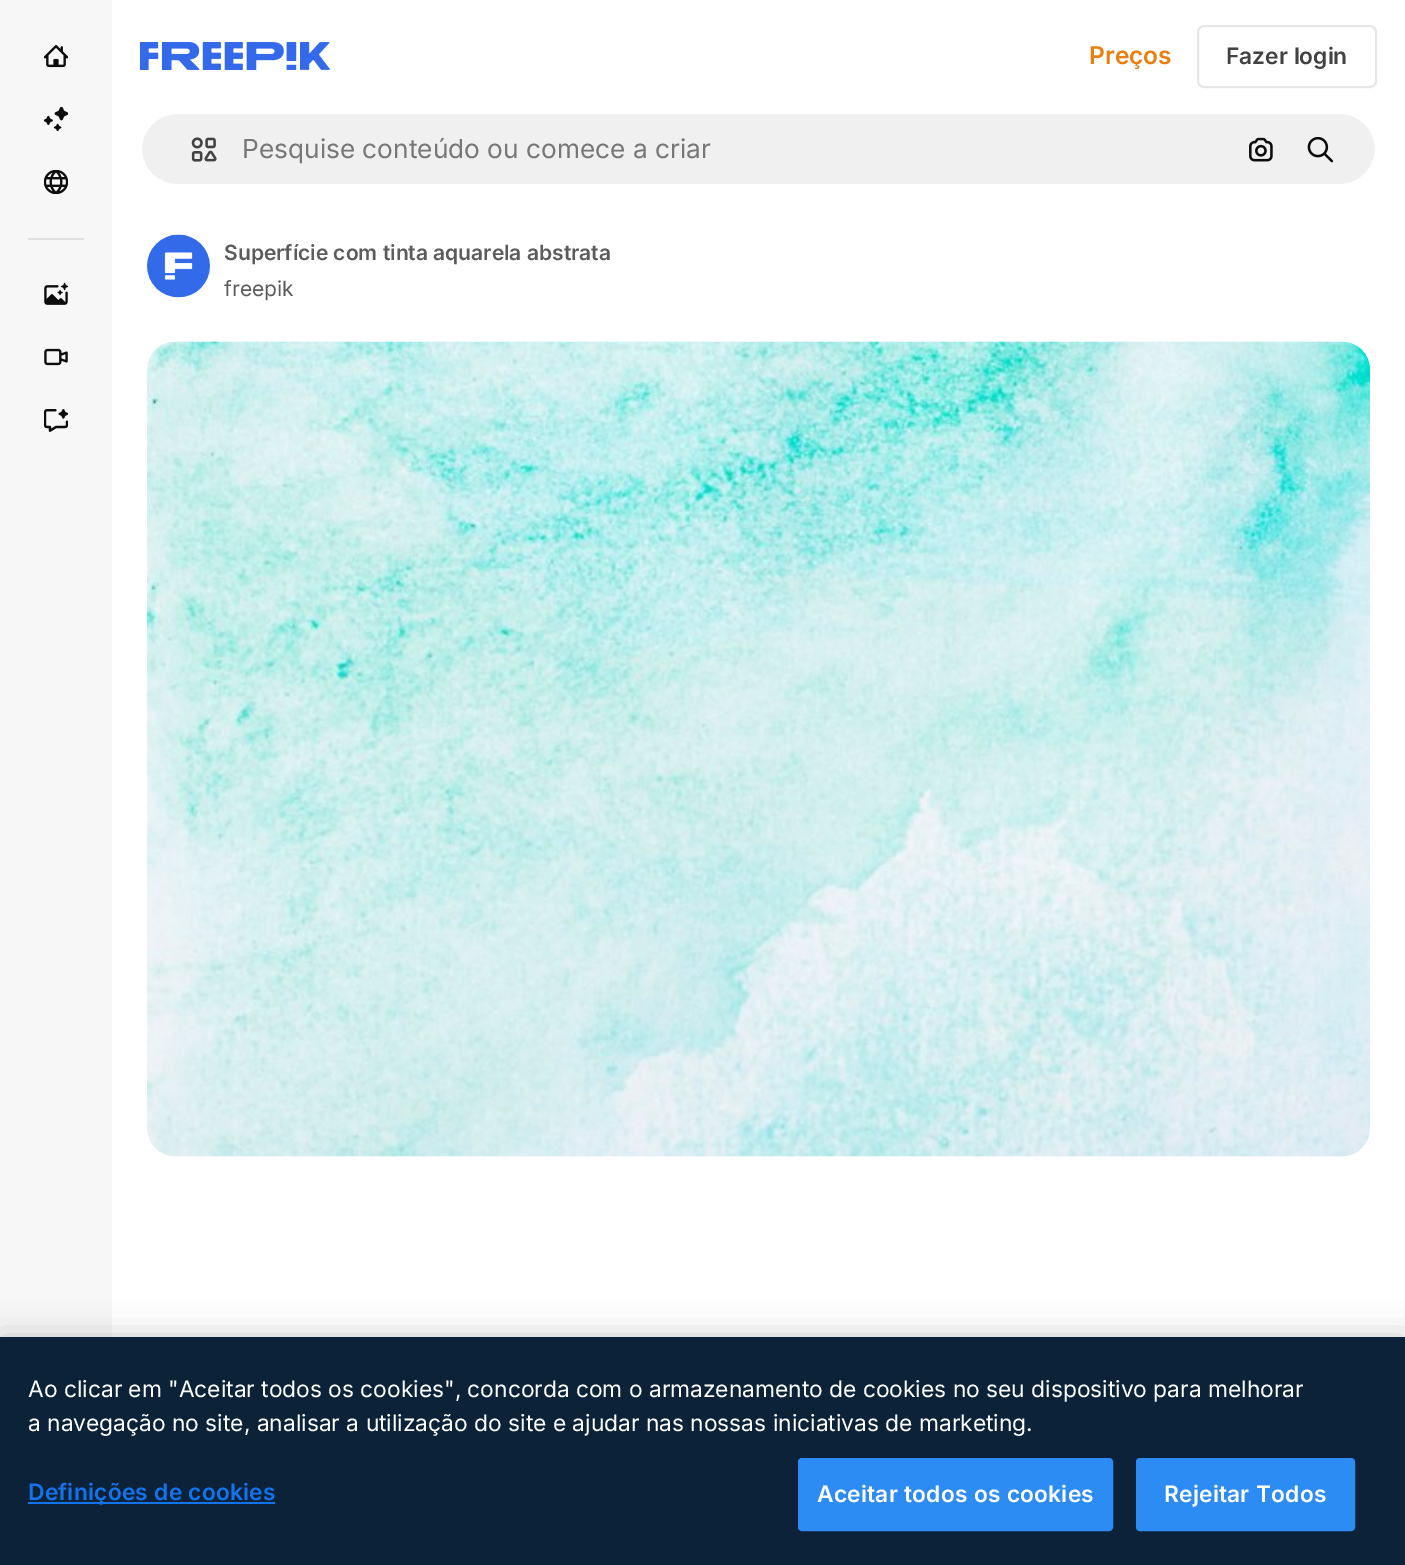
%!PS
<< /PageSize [1405 1565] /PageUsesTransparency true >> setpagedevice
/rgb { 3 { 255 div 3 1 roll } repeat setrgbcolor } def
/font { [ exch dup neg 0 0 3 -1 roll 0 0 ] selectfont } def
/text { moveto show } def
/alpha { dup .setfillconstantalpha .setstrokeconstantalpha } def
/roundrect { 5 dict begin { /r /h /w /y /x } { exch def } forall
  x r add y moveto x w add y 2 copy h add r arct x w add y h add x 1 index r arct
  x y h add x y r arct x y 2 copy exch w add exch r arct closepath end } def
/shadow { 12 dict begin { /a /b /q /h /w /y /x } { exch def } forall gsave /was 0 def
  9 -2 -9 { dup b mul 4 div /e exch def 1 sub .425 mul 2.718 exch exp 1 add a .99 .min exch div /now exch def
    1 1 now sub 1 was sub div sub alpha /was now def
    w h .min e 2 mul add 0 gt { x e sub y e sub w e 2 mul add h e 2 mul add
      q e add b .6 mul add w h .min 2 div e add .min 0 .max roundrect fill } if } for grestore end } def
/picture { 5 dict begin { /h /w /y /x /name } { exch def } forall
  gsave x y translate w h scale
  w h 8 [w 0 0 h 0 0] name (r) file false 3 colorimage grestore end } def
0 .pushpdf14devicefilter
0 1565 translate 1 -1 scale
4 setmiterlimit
255 255 255 rgb
0 0 1405 1565 rectfill
247 247 247 rgb
0 0 112 1337 rectfill
(img_01.rgb) 44 45 24 23 picture
(img_02.rgb) 44 107 24 24 picture
(img_03.rgb) 44 170 24 24 picture
224 224 224 rgb
28 238 56 2 rectfill
(img_04.rgb) 44 282 24 23 picture
(img_05.rgb) 44 348 24 18 picture
(img_06.rgb) 44 409 24 23 picture
(img_07.rgb) 140 42 190 28 picture
231 231 231 rgb
2 setlinewidth
1198 26 178 61 6 roundrect stroke
240 240 240 rgb
141 113 1235 72 36 roundrect gsave fill grestore
255 255 255 rgb
stroke
(img_08.rgb) 191 137 26 25 picture
(img_09.rgb) 1249 137 24 25 picture
(img_10.rgb) 1307 137 27 26 picture
(img_11.rgb) 147 234 63 64 picture
(img_12.rgb) 147 341 1223 816 picture
0 0 0 rgb
0 1337 1405 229 0 16 0.2 shadow
11 34 57 rgb
0 1337 1405 228 rectfill
18 115 235 rgb
28 1502 247 2 rectfill
44 140 244 rgb
799 1459 313 71 3 roundrect gsave fill grestore
stroke
1137 1459 217 71 3 roundrect gsave fill grestore
stroke
/Inter-SemiBold 24.5 font
234 126 17 rgb
(Preços) 1089 64 text
/Inter-SemiBold 22.75 font
66 66 66 rgb
(Fazer login) 1226 64 text
/Inter-Regular 26.25 font
119 119 119 rgb
(Pesquise conteúdo ou comece a criar) 242 158 text
/Inter-SemiBold 21 font
92 92 92 rgb
(Superfície com tinta aquarela abstrata) 224 260 text
/Inter-Regular 21 font
(freepik) 224 296 text
/Inter-Regular 22.75 font
255 255 255 rgb
(Ao clicar em "Aceitar todos os cookies", concorda com o armazenamento de cookies no seu dispositivo para melhorar) 28 1397 text
(a navegação no site, analisar a utilização do site e ajudar nas nossas iniciativas de marketing.) 28 1431 text
/Inter-SemiBold 22.75 font
18 115 235 rgb
28 1500 moveto 0.25 0 (Definições de cookies) ashow
255 255 255 rgb
817 1502 moveto 0.25 0 (Aceitar todos os cookies) ashow
1164 1502 moveto 0.25 0 (Rejeitar Todos) ashow
.poppdf14devicefilter showpage
